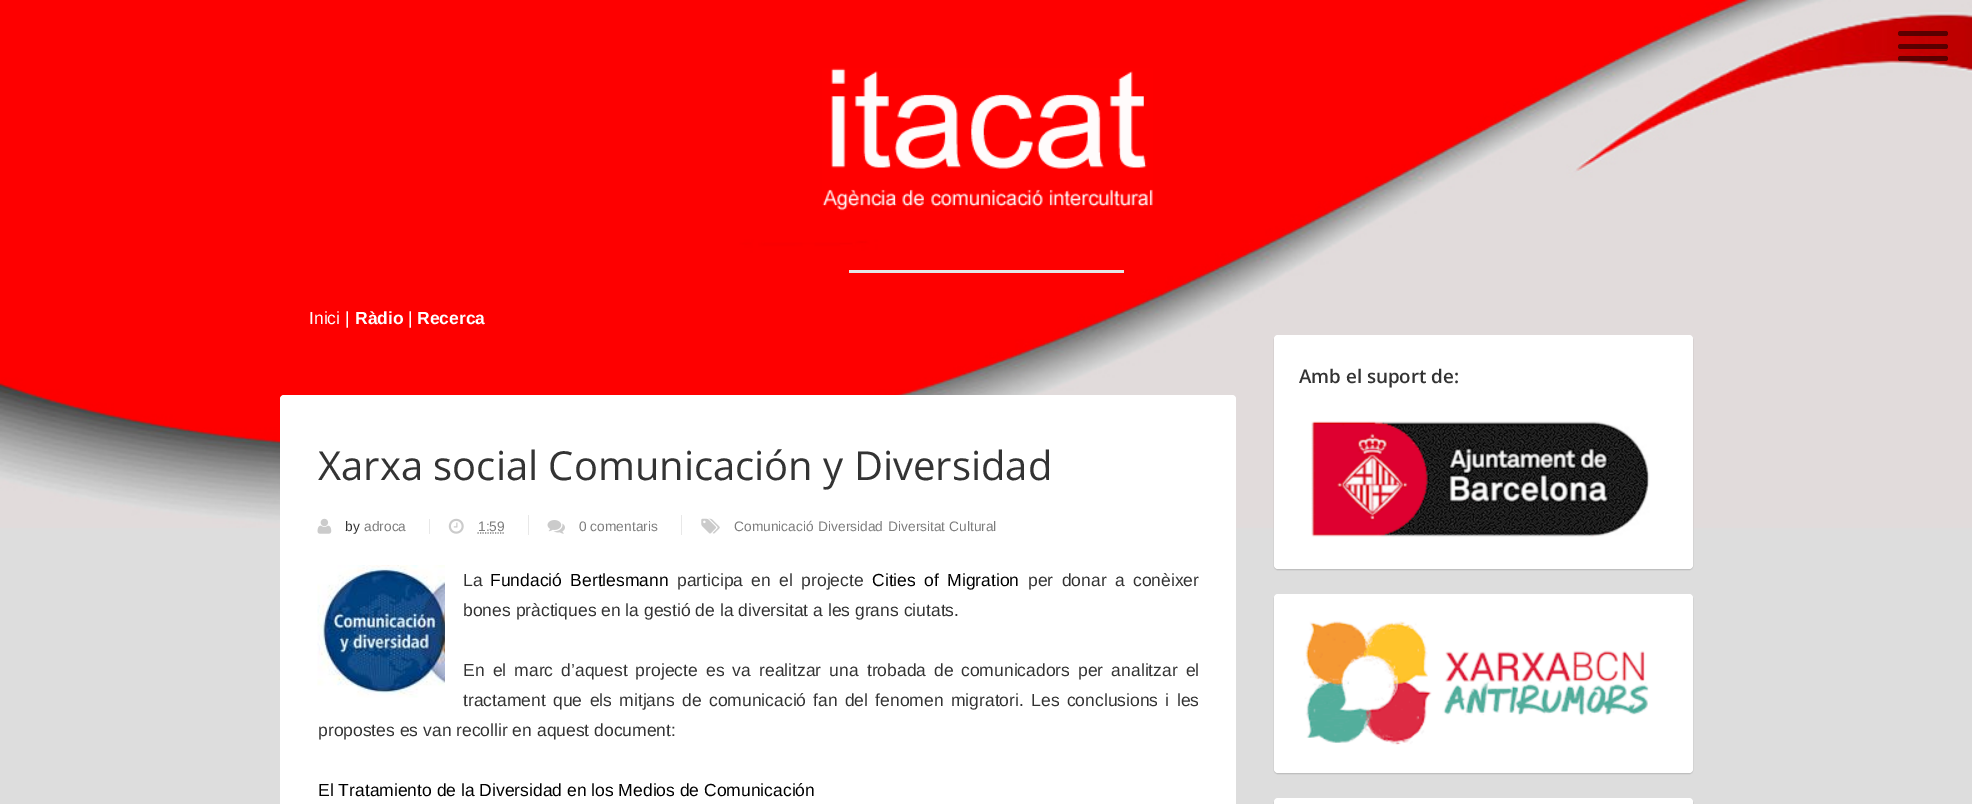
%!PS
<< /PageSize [1972 804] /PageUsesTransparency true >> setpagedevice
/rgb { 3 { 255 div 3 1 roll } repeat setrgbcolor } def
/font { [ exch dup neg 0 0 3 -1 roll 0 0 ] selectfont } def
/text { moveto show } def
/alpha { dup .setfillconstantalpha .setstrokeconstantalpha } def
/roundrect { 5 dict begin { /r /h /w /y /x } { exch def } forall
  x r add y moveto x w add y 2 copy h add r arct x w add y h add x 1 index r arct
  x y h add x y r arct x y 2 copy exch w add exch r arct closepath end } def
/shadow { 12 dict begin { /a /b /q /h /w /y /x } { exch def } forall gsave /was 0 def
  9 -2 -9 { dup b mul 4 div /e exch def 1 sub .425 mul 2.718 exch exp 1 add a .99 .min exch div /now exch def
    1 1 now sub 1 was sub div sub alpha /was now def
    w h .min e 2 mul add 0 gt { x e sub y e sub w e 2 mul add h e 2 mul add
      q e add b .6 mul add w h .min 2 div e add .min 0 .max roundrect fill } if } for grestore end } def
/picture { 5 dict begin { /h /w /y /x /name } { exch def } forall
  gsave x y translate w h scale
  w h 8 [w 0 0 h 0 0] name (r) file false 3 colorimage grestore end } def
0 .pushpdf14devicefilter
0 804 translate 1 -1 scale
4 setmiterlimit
221 221 221 rgb
0 0 1972 804 rectfill
(img_01.rgb) 0 0 1972 528 picture
0.54 alpha
0 0 0 rgb
1898 31 50 5 2.5 roundrect fill
1898 44 50 5 2.5 roundrect fill
1898 56 50 5 2.5 roundrect fill
1 alpha
(img_02.rgb) 822 68 331 143 picture
229 229 229 rgb
849 270 275 3 rectfill
255 255 255 rgb
280 395 956 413 4 roundrect fill
232 232 232 rgb
429 519 1 15 rectfill
(img_03.rgb) 317 518 15 16 picture
528 515 1 20 rectfill
(img_04.rgb) 448 518 16 16 picture
124 124 124 rgb
1.2 setlinewidth
[1.25 1.25] 0 setdash
477.5 533 moveto 27 0 rlineto stroke
232 232 232 rgb
681 515 1 20 rectfill
(img_05.rgb) 547 520 18 14 picture
(img_06.rgb) 701 518 19 16 picture
(img_07.rgb) 317 565 128 133 picture
0 0 0 rgb
1274 336 419 234 4 0.5 0.15 shadow
255 255 255 rgb
1274 335 419 234 4 roundrect fill
(img_08.rgb) 1311 421 339 116 picture
0 0 0 rgb
1274 595 419 179 4 0.5 0.15 shadow
255 255 255 rgb
1274 594 419 179 4 roundrect fill
(img_09.rgb) 1303 621 346 124 picture
0 0 0 rgb
1274 799 419 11 4 0.5 0.15 shadow
255 255 255 rgb
1274 798 419 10 4 roundrect fill
/LiberationSans-Regular 17.5 font
(Inici |) 309 324 text
/LiberationSans-Bold 17.5 font
(Ràdio) 355 324 text
/LiberationSans-Regular 17.5 font
(|) 408 324 text
/LiberationSans-Bold 17.5 font
(Recerca) 417 324 text
/OpenSans-Regular 40 font
51 51 51 rgb
(Xarxa social Comunicación y Diversidad) 318 480 text
/LiberationSans-Regular 13.75 font
(by) 345 531 text
124 124 124 rgb
(adroca) 364 531 text
(1:59) 478 531 text
(0 comentaris) 579 531 text
(Comunicació) 734 531 text
(Diversidad) 818 531 text
(Diversitat Cultural) 888 531 text
/LiberationSans-Regular 17.5 font
51 51 51 rgb
(La) 463 586 text
0 0 0 rgb
490 586 moveto 3.5 0 32 (Fundació Bertlesmann) widthshow
51 51 51 rgb
677 586 moveto 3.5 0 32 (participa en el projecte) widthshow
0 0 0 rgb
872 586 moveto 3.5 0 32 (Cities of Migration) widthshow
51 51 51 rgb
1028 586 moveto 3.5 0 32 (per donar a conèixer) widthshow
(bones pràctiques en la gestió de la diversitat a les grans ciutats.) 463 616 text
463 676 moveto 3.25 0 32 (En el marc d’aquest projecte es va realitzar una trobada de) widthshow
961 676 moveto 3.25 0 32 (comunicadors per analitzar el) widthshow
463 706 moveto 2.5 0 32 (tractament que els mitjans de comunicació) widthshow
813 706 moveto 2.5 0 32 (fan del fenomen migratori. Les conclusions i les) widthshow
(propostes es van recollir en aquest document:) 318 736 text
0 0 0 rgb
(El Tratamiento de la Diversidad en los Medios de Comunicación) 318 796 text
/OpenSans-SemiBold 18.75 font
51 51 51 rgb
(Amb el suport de:) 1299 383 text
.poppdf14devicefilter showpage
